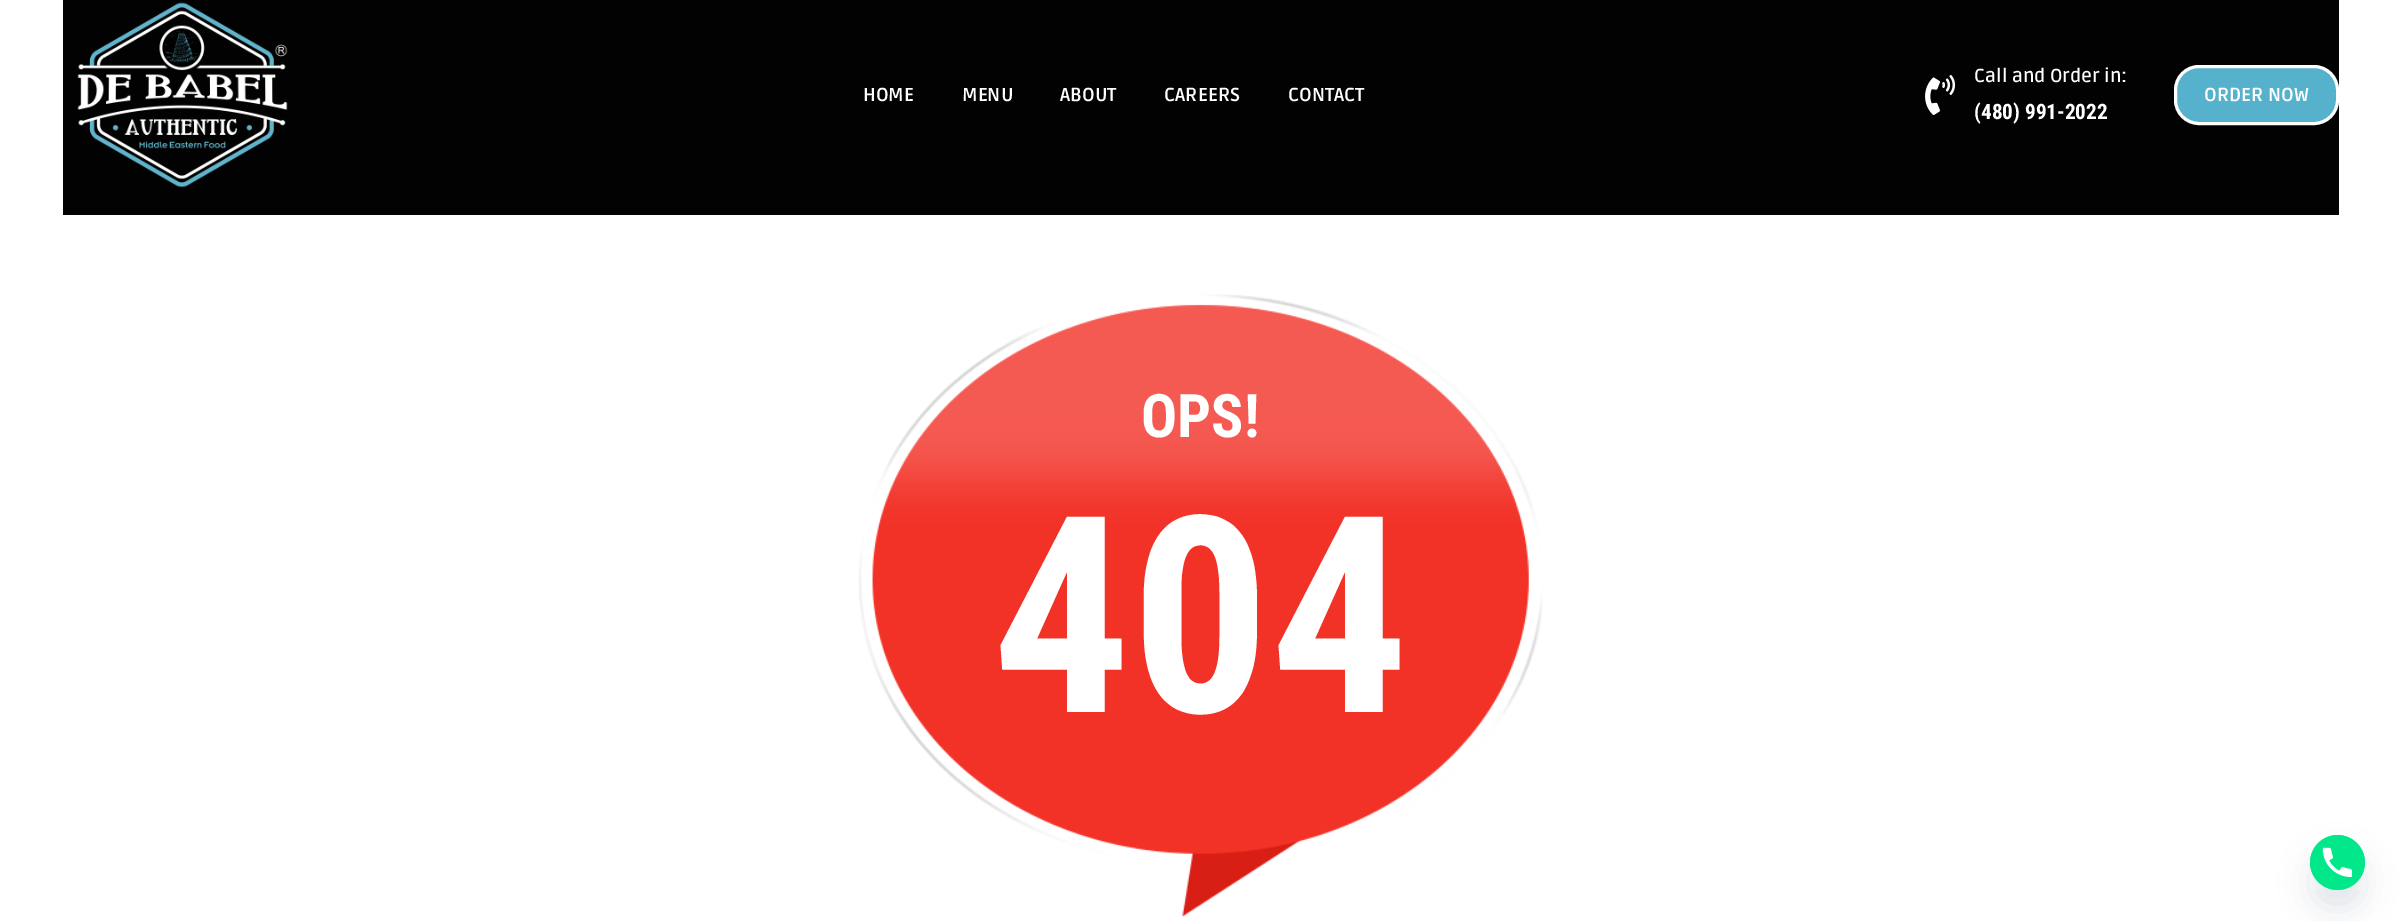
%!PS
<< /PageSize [2401 921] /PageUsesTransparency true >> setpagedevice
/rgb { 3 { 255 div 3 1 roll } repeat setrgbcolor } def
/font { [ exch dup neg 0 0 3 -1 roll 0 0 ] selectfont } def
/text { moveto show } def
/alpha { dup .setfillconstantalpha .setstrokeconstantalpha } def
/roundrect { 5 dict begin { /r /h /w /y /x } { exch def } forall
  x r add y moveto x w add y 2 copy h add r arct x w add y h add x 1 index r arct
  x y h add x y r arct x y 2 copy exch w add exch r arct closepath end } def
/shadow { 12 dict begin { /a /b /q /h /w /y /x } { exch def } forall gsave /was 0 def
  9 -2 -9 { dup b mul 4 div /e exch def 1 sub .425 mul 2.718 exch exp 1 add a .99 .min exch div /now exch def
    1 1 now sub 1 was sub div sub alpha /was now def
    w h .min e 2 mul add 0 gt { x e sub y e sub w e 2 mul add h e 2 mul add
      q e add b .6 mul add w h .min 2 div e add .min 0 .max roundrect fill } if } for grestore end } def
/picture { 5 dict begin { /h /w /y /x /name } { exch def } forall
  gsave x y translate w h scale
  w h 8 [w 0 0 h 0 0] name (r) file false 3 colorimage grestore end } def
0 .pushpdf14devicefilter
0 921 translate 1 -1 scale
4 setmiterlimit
255 255 255 rgb
0 0 2401 921 rectfill
2 2 2 rgb
63 0 2276 215 rectfill
(img_01.rgb) 77 2 211 186 picture
(img_02.rgb) 1925 74 31 41 picture
86 177 205 rgb
2175.5 66.5 162 57 23.5 roundrect gsave fill grestore
255 255 255 rgb
3 setlinewidth
stroke
(img_03.rgb) 858 294 685 623 picture
73 104 126 rgb
2310 855 55 55 27.5 15 0.16 shadow
(img_04.rgb) 2310 835 55 55 picture
/Ruda-Bold 18.75 font
255 255 255 rgb
(HOME) 863 101 text
(MENU) 962 101 text
(ABOUT) 1060 101 text
(CAREERS) 1164 101 text
(CONTACT) 1288 101 text
/Ruda-SemiBold 18.75 font
(Call and Order in:) 1974 82 text
/RobotoCondensed-Bold 21.25 font
(\(480\) 991-2022) 1974 119 text
/Ruda-Bold 18.75 font
(ORDER NOW) 2204 101 text
/RobotoCondensed-Bold 60 font
(OPS!) 1141 437 text
/RobotoCondensed-Bold 275 font
(404) 992 712 text
.poppdf14devicefilter showpage
